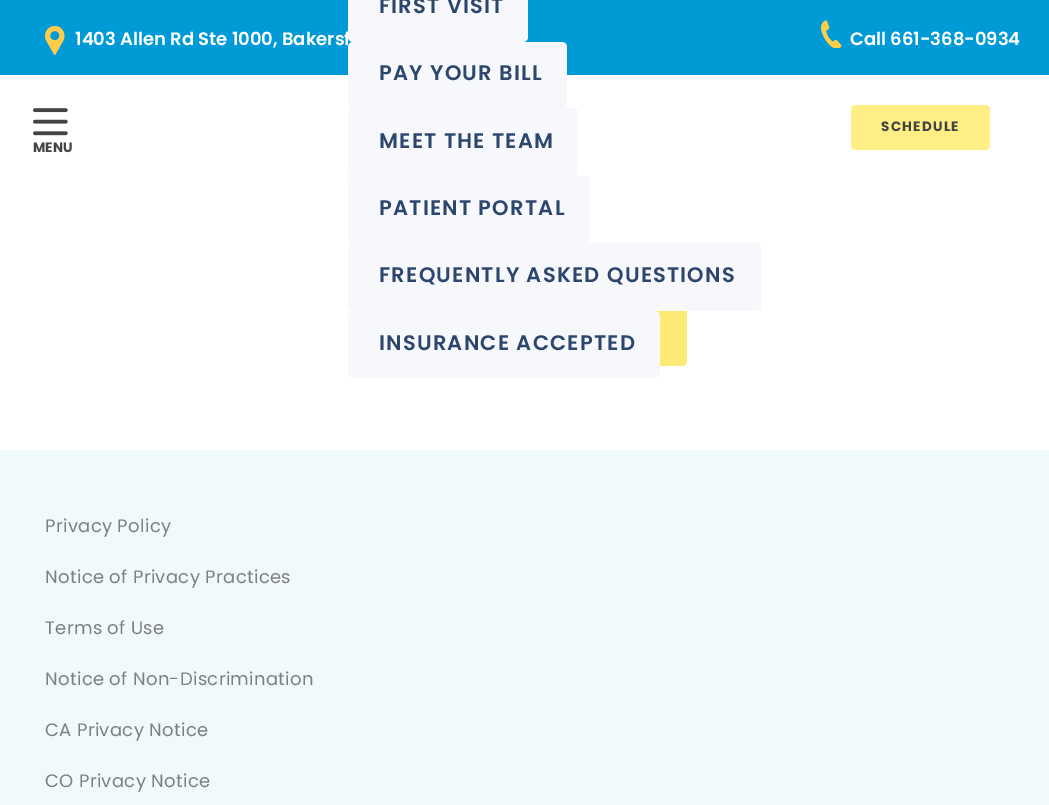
%!PS
<< /PageSize [1049 805] >> setpagedevice
/rgb { 3 { 255 div 3 1 roll } repeat setrgbcolor } def
/font { [ exch dup neg 0 0 3 -1 roll 0 0 ] selectfont } def
/text { moveto show } def
/roundrect { 5 dict begin { /r /h /w /y /x } { exch def } forall
  x r add y moveto x w add y 2 copy h add r arct x w add y h add x 1 index r arct
  x y h add x y r arct x y 2 copy exch w add exch r arct closepath end } def
/picture { 5 dict begin { /h /w /y /x /name } { exch def } forall
  gsave x y translate w h scale
  w h 8 [w 0 0 h 0 0] name (r) file false 3 colorimage grestore end } def
0 805 translate 1 -1 scale
4 setmiterlimit
255 255 255 rgb
0 0 1049 805 rectfill
(img_01.rgb) 33 108 35 28 picture
247 248 252 rgb
348 108 230 68 5 roundrect fill
348 176 242 67 5 roundrect fill
253 234 116 rgb
363 294 324 72 5 roundrect fill
247 248 252 rgb
348 243 413 68 5 roundrect fill
348 311 312 67 5 roundrect fill
255 238 132 rgb
851 105 139 45 5 roundrect fill
0 155 215 rgb
0 0 1049 75 rectfill
(img_02.rgb) 45 26 20 30 picture
(img_03.rgb) 821 20 21 28 picture
240 250 252 rgb
0 450 1049 355 rectfill
/Poppins-Bold 13.5 font
68 68 68 rgb
(MENU) 33 152 text
/Poppins-SemiBold 21 font
45 70 110 rgb
379 148 moveto 1.25 0 (MEET THE TEAM) ashow
379 215 moveto 1.25 0 (PATIENT PORTAL) ashow
379 282 moveto 1.25 0 (FREQUENTLY ASKED QUESTIONS) ashow
379 350 moveto 1.25 0 (INSURANCE ACCEPTED) ashow
/Poppins-Bold 13.5 font
68 68 68 rgb
881 131 moveto 1.25 0 (SCHEDULE) ashow
/Poppins-SemiBold 18 font
255 255 255 rgb
(1403 Allen Rd Ste 1000, Bakersf) 75 45 text
247 248 252 rgb
348 42 219 66 5 roundrect fill
/Poppins-SemiBold 21 font
45 70 110 rgb
379 80 moveto 1.25 0 (PAY YOUR BILL) ashow
247 248 252 rgb
348 -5 180 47 5 roundrect fill
45 70 110 rgb
379 13 moveto 1.25 0 (FIRST VISIT) ashow
/Poppins-SemiBold 18 font
255 255 255 rgb
(Call 661-368-0934) 850 45 text
/Poppins-Regular 18 font
127 127 127 rgb
45 532 moveto 0.35 0 (Privacy Policy) ashow
45 583 moveto 0.35 0 (Notice of Privacy Practices) ashow
45 634 moveto 0.35 0 (Terms of Use) ashow
45 685 moveto 0.35 0 (Notice of Non-Discrimination) ashow
45 736 moveto 0.35 0 (CA Privacy Notice) ashow
45 787 moveto 0.35 0 (CO Privacy Notice) ashow
showpage
